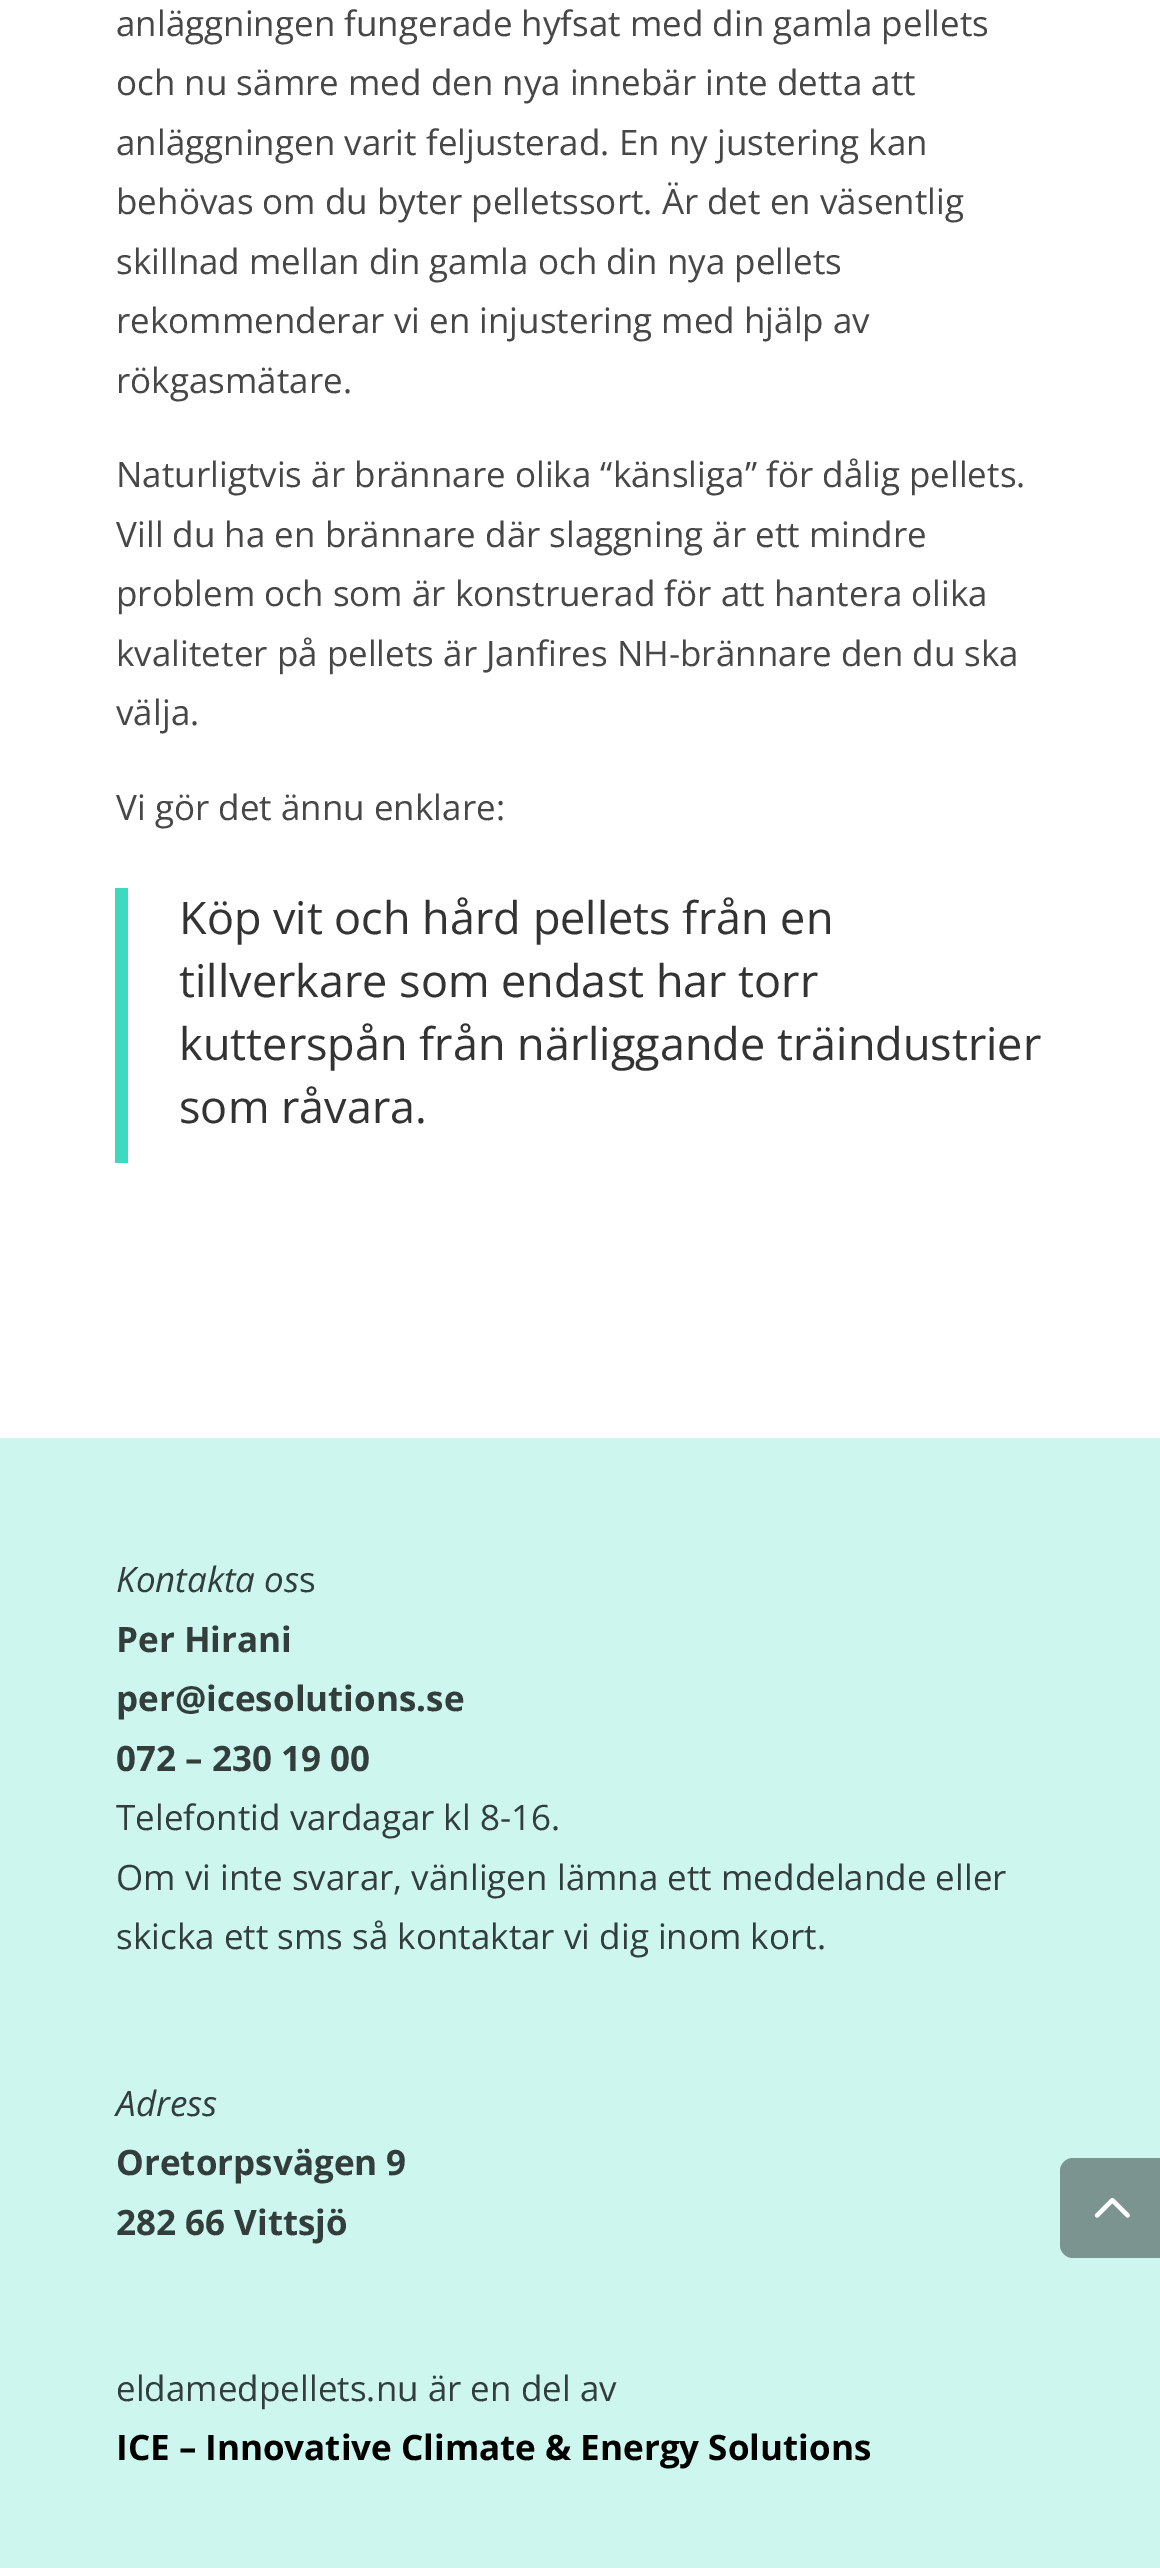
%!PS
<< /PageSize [1160 2568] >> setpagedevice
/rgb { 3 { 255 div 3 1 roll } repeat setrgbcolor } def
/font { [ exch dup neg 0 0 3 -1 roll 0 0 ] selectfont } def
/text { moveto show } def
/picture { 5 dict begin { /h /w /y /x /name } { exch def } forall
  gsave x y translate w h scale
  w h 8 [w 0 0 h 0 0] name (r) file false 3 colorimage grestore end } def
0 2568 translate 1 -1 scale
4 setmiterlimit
255 255 255 rgb
0 0 1160 2568 rectfill
60 219 192 rgb
115 888 13 275 rectfill
205 246 239 rgb
0 1438 1160 1130 rectfill
123 148 143 rgb
1073 2158 moveto 87 0 rlineto 0 100 rlineto -87 0 rlineto -7 0 -13 -6 -13 -13 rcurveto 0 -74 rlineto 0 -7 6 -13 13 -13 rcurveto closepath fill
(img_01.rgb) 1094 2197 36 21 picture
/OpenSans-Regular 35 font
71 71 71 rgb
(anläggningen fungerade hyfsat med din gamla pellets) 116 36 text
(och nu sämre med den nya innebär inte detta att) 116 95 text
(anläggningen varit feljusterad. En ny justering kan) 116 155 text
(behövas om du byter pelletssort. Är det en väsentlig) 116 214 text
(skillnad mellan din gamla och din nya pellets) 116 274 text
(rekommenderar vi en injustering med hjälp av) 116 333 text
(rökgasmätare.) 116 393 text
(Naturligtvis är brännare olika “känsliga” för dålig pellets.) 116 487 text
(Vill du ha en brännare där slaggning är ett mindre) 116 547 text
(problem och som är konstruerad för att hantera olika) 116 606 text
(kvaliteter på pellets är Janfires NH-brännare den du ska) 116 666 text
(välja.) 116 725 text
(Vi gör det ännu enklare:) 116 820 text
/OpenSans-Regular 45 font
51 51 51 rgb
(Köp vit och hård pellets från en) 179 934 text
(tillverkare som endast har torr) 179 997 text
(kutterspån från närliggande träindustrier) 179 1060 text
(som råvara.) 179 1123 text
/OpenSans-Italic 35 font
51 62 60 rgb
(Kontakta os) 116 1592 text
/OpenSans-Regular 35 font
(s) 299 1592 text
/OpenSans-Bold 35 font
(Per Hirani) 116 1652 text
(per@icesolutions.se) 116 1711 text
(072 – 230 19 00) 116 1771 text
/OpenSans-Regular 35 font
(Telefontid vardagar kl 8-16.) 116 1830 text
(Om vi inte svarar, vänligen lämna ett meddelande eller) 116 1890 text
(skicka ett sms så kontaktar vi dig inom kort.) 116 1949 text
/OpenSans-Italic 35 font
(Adress) 116 2116 text
/OpenSans-Bold 35 font
(Oretorpsvägen 9) 116 2175 text
(282 66 Vittsjö) 116 2235 text
/OpenSans-Regular 35 font
(eldamedpellets.nu är en del av) 116 2401 text
/OpenSans-Bold 35 font
0 0 0 rgb
(ICE – Innovative Climate & Energy Solutions) 116 2460 text
showpage
